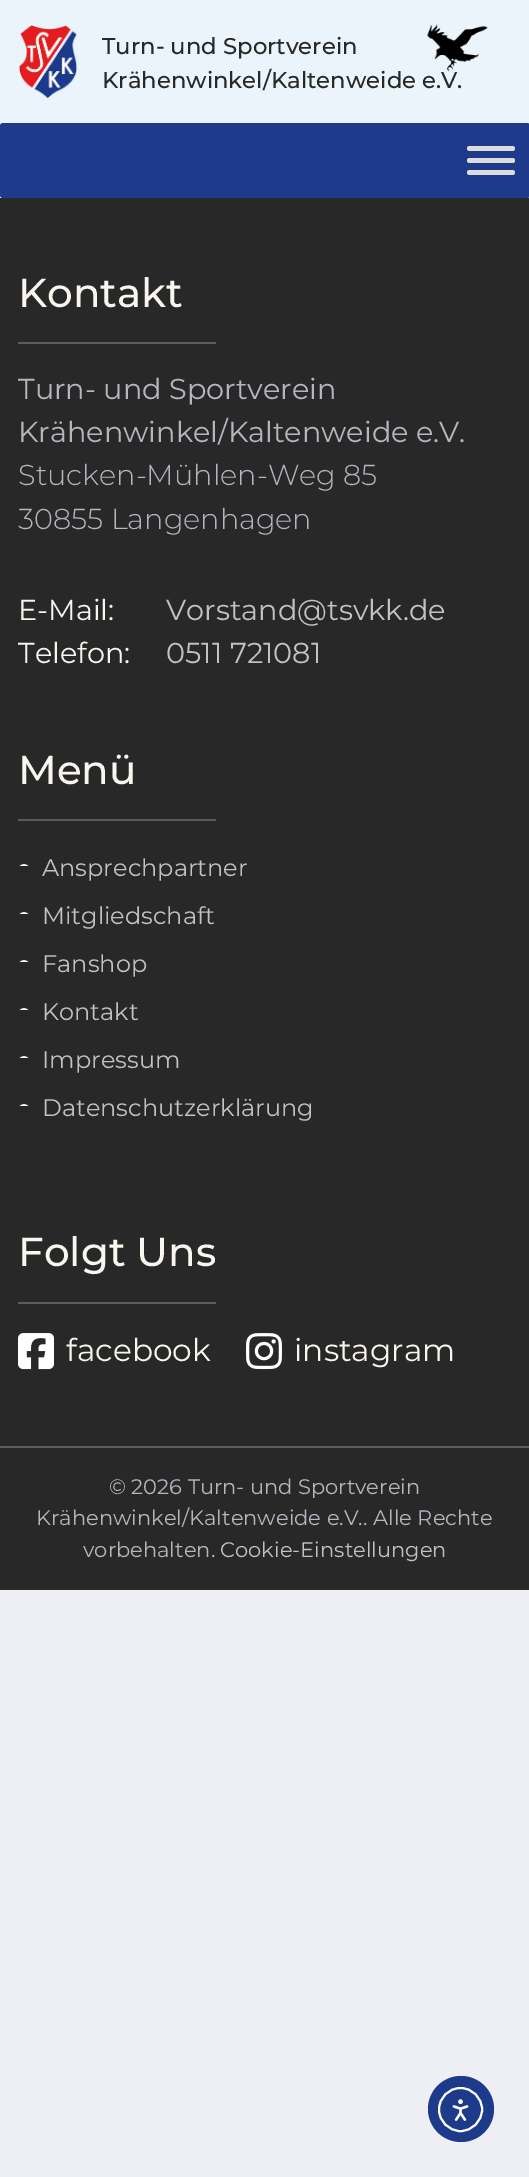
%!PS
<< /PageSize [529 2177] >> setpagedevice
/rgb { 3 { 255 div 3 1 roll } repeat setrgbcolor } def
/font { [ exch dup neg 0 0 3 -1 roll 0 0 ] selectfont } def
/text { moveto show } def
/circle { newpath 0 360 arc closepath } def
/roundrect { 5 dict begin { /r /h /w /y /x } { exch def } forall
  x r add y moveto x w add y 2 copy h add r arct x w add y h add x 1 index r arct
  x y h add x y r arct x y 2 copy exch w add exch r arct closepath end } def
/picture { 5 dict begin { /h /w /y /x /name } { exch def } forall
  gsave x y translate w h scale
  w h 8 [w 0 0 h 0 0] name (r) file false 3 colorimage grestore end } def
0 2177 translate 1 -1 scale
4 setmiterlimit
238 239 244 rgb
0 0 529 2177 rectfill
235 244 250 rgb
0 0 529 198 rectfill
(img_01.rgb) 19 25 58 74 picture
29 58 139 rgb
0 123 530 75 3 roundrect fill
221 221 221 rgb
467 146 48 5 2.5 roundrect fill
467 158 48 5 2.5 roundrect fill
467 170 48 5 2.5 roundrect fill
40 40 40 rgb
0 198 529 1392 rectfill
92 91 90 rgb
18 342 198 2 rectfill
18 819 198 2 rectfill
(img_03.rgb) 19 864 10 2 picture
(img_03.rgb) 19 912 10 2 picture
(img_03.rgb) 19 960 10 2 picture
(img_03.rgb) 19 1008 10 2 picture
(img_03.rgb) 19 1056 10 2 picture
(img_03.rgb) 19 1104 10 2 picture
18 1302 198 2 rectfill
(img_04.rgb) 18 1333 36 37 picture
(img_05.rgb) 246 1333 36 37 picture
0 1446 529 2 rectfill
29 58 139 rgb
461 2109 33 circle fill
255 255 255 rgb
2 setlinewidth
460.5 2109.5 21.5 circle stroke
(img_06.rgb) 452 2099 17 22 picture
/Montserrat-Thin 22.75 font
40 40 40 rgb
(Turn- und Sportverein) 102 54 text
(Krähenwinkel/Kaltenweide e.V.) 102 88 text
(img_02.rgb) 427 24 61 48 picture
/Montserrat-Thin 40.5 font
249 245 239 rgb
(Kontakt) 18 307 text
/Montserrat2-Thin 28.75 font
182 182 192 rgb
(Turn- und Sportverein) 18 399 text
(Krähenwinkel/Kaltenweide e.V.) 18 442 text
/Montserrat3-Thin 28.75 font
(Stucken-Mühlen-Weg 85) 18 485 text
(30855 Langenhagen) 18 529 text
/Montserrat2-Thin 28.75 font
249 245 239 rgb
(E-Mail:) 18 620 text
(Telefon:) 18 663 text
195 193 193 rgb
(Vorstand@tsvkk.de) 166 620 text
(0511 721081) 166 663 text
/Montserrat-Thin 40.5 font
249 245 239 rgb
(Menü) 18 784 text
/Montserrat2-Thin 24 font
195 193 193 rgb
(Ansprechpartner) 42 876 text
(Mitgliedschaft) 42 924 text
(Fanshop) 42 972 text
(Kontakt) 42 1020 text
(Impressum) 42 1068 text
(Datenschutzerklärung) 42 1116 text
/Montserrat-Thin 40.5 font
249 245 239 rgb
(Folgt Uns) 18 1266 text
/Montserrat2-Thin 31.25 font
(facebook) 66 1361 text
(instagram) 294 1361 text
/Montserrat2-Thin 21 font
182 182 192 rgb
(© 2026 Turn- und Sportverein) 109 1494 text
(Krähenwinkel/Kaltenweide e.V.. Alle Rechte) 36 1525 text
(vorbehalten.) 83 1557 text
195 193 193 rgb
(Cookie-Einstellungen) 220 1557 text
showpage
